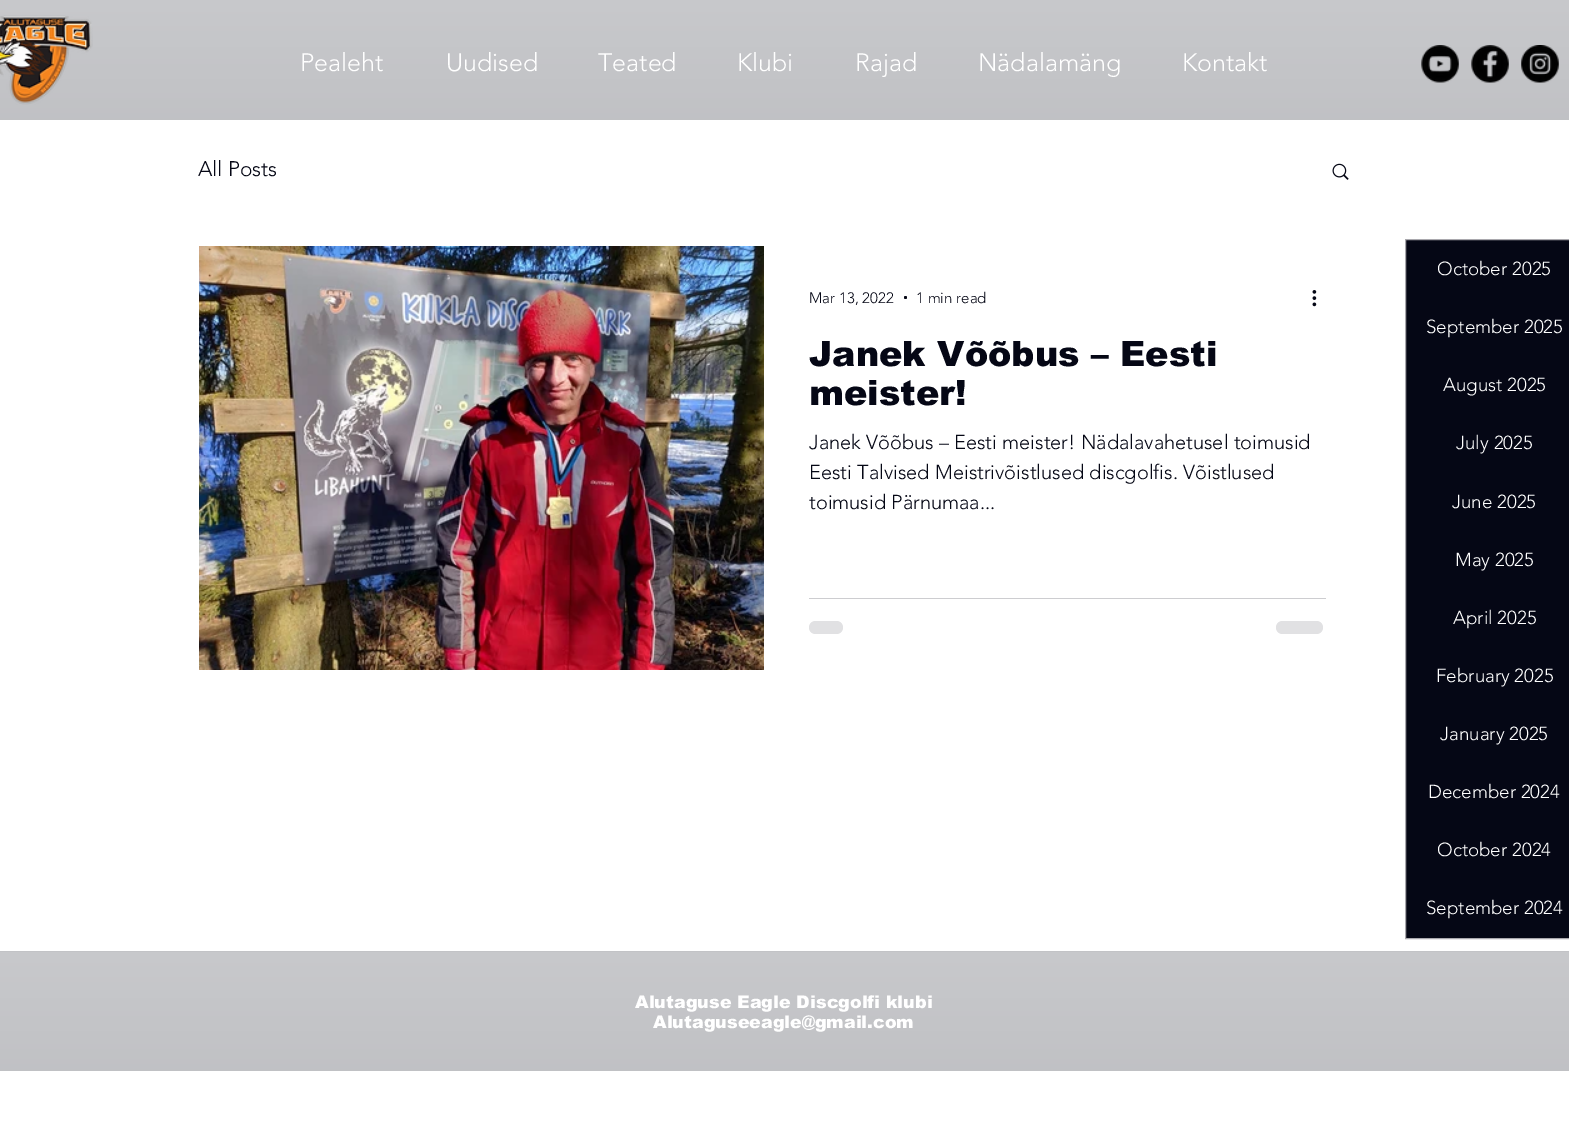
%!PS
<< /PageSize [1569 1143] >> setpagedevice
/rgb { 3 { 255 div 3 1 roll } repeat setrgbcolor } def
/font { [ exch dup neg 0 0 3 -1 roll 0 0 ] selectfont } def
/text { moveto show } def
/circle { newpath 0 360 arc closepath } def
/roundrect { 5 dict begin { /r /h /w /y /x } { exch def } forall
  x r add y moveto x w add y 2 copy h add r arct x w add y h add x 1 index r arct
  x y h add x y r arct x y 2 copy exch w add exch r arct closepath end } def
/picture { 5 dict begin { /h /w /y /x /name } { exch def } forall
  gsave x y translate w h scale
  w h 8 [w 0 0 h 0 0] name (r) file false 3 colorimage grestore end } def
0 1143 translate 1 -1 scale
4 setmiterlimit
255 255 255 rgb
0 0 1569 1143 rectfill
180 181 185 rgb
0 0 1569 120 rectfill
(img_01.rgb) 0 0 1569 120 picture
(img_02.rgb) 0 15 93 90 picture
(img_03.rgb) 1421 45 38 38 picture
(img_04.rgb) 1471 45 38 38 picture
(img_05.rgb) 1521 45 38 38 picture
(img_06.rgb) 1332 163 17 17 picture
(img_07.rgb) 199 246 565 424 picture
5 7 21 rgb
905.5 297.5 1.5 circle fill
(img_08.rgb) 1312 290 5 17 picture
205 205 208 rgb
809 598 517 1 rectfill
225 225 227 rgb
809 621 34 13 6.5 roundrect fill
1276 621 47 13 6.5 roundrect fill
5 7 21 rgb
1405.5 239.5 moveto 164 0 rlineto 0 699 rlineto -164 0 rlineto closepath gsave fill grestore
169 168 173 rgb
stroke
180 181 185 rgb
0 951 1569 120 rectfill
(img_09.rgb) 0 951 1569 120 picture
/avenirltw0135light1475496-Light 25 font
255 255 255 rgb
(Pealeht) 300 71 text
(Uudised) 446 71 text
(Teated) 598 71 text
(Klubi) 737 71 text
(Rajad) 855 71 text
(Nädalamäng) 978 71 text
(Kontakt) 1182 71 text
/avenirltw0135light1475496-Light 21 font
5 7 21 rgb
(All Posts) 198 176 text
/avenirltw0135light1475496-Light 15 font
(Mar 13, 2022) 809 303 text
(1 min read) 916 303 text
/arial-Black 35 font
(Janek Võõbus – Eesti) 809 366 text
(meister!) 809 405 text
/avenirltw0135light1475496-Light 20 font
(Janek Võõbus – Eesti meister! Nädalavahetusel toimusid) 809 449 text
(Eesti Talvised Meistrivõistlused discgolfis. Võistlused) 809 479 text
(toimusid Pärnumaa...) 809 509 text
/avenirltw0135light1475496-Light 18.75 font
255 255 255 rgb
(October 2025) 1437 275 text
(September 2025) 1426 333 text
(August 2025) 1443 391 text
(July 2025) 1456 449 text
(June 2025) 1452 508 text
(May 2025) 1455 566 text
(April 2025) 1453 624 text
(February 2025) 1436 682 text
(January 2025) 1440 740 text
(December 2024) 1428 798 text
(October 2024) 1437 856 text
(September 2024) 1426 914 text
/arial-Black 17.5 font
(Alutaguse Eagle Discgolfi klubi) 635 1008 text
(Alutaguseeagle@gmail.com) 653 1028 text
showpage
